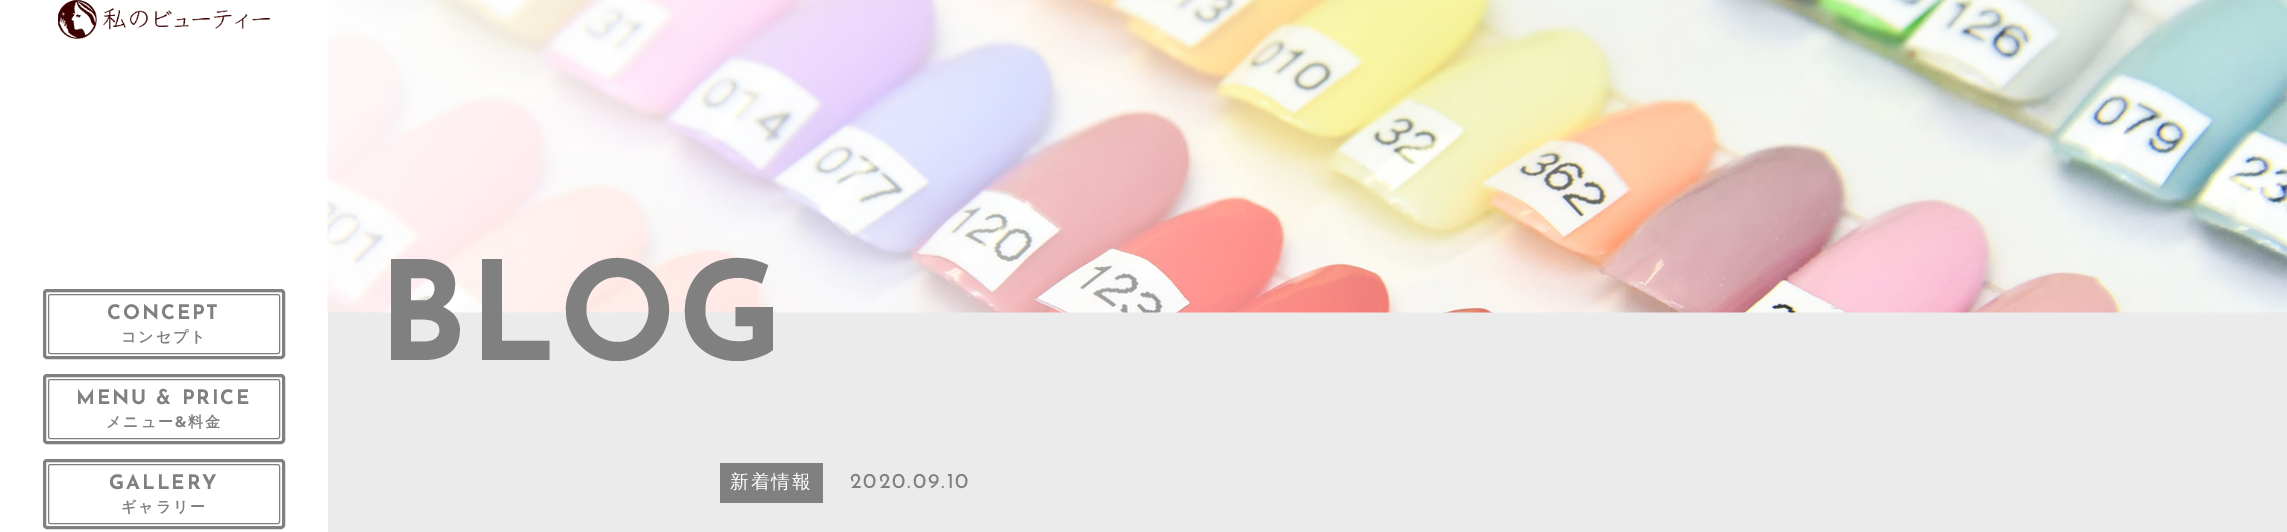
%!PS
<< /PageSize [2287 532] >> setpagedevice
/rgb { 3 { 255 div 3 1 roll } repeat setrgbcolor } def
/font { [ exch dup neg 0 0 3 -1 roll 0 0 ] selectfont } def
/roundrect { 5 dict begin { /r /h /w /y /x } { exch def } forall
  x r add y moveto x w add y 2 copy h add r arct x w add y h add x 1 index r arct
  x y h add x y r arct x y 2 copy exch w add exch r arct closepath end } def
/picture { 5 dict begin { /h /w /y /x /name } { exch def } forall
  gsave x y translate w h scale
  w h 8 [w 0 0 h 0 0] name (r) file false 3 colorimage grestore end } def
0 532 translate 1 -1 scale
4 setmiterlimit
255 255 255 rgb
0 0 2287 532 rectfill
(img_01.rgb) 58 0 212 39 picture
128 128 128 rgb
3 setlinewidth
44.5 290.5 239 67 2.5 roundrect stroke
1 setlinewidth
48.5 294.5 231 59 2 roundrect stroke
3 setlinewidth
44.5 375.5 239 67 2.5 roundrect stroke
1 setlinewidth
48.5 379.5 231 59 2 roundrect stroke
3 setlinewidth
44.5 460.5 239 67 2.5 roundrect stroke
1 setlinewidth
48.5 464.5 231 59 2 roundrect stroke
235 235 235 rgb
328 312 1959 220 rectfill
(img_02.rgb) 327 0 1960 313 picture
128 128 128 rgb
720 463 103 40 rectfill
/JosefinSans-Bold 20 font
107 319 moveto 1.9 0 (CONCEPT) ashow
/WenQuanYiZenHei-Bold 15 font
121 342 moveto 1.9 0 (コンセプト) ashow
/JosefinSans-Bold 20 font
76 404 moveto 1.9 0 (MENU & PRICE) ashow
/WenQuanYiZenHei-Bold 15 font
106 427 moveto 1.9 0 (メニュー) ashow
/OpenSans-Bold 15 font
175 427 moveto 1.9 0 (&) ashow
/WenQuanYiZenHei-Bold 15 font
188 427 moveto 1.9 0 (料金) ashow
/JosefinSans-Bold 20 font
109 489 moveto 1.9 0 (GALLERY) ashow
/WenQuanYiZenHei-Bold 15 font
121 512 moveto 1.9 0 (ギャラリー) ashow
/JosefinSans-Bold 137.5 font
378 360 moveto 1.9 0 (BLOG) ashow
/WenQuanYiZenHei-Medium 18.75 font
255 255 255 rgb
730 488 moveto 1.9 0 (新着情報) ashow
/JosefinSans-Regular 21.25 font
128 128 128 rgb
850 488 moveto 1.9 0 (2020.09.10) ashow
showpage
